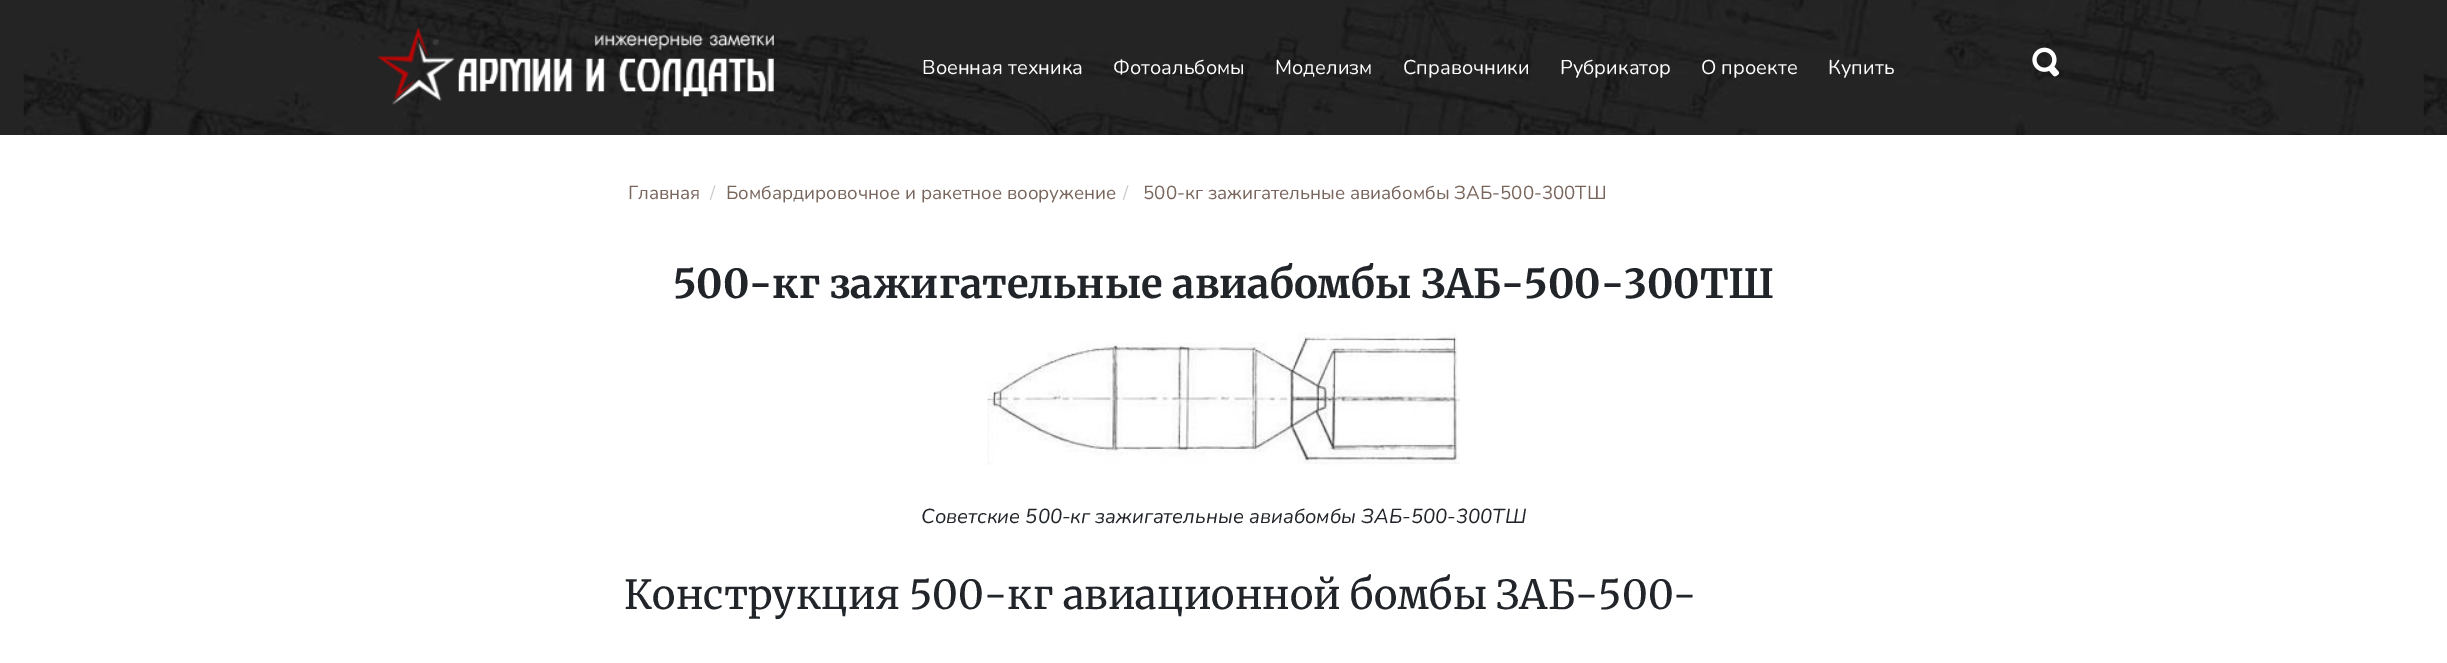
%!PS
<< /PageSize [2447 663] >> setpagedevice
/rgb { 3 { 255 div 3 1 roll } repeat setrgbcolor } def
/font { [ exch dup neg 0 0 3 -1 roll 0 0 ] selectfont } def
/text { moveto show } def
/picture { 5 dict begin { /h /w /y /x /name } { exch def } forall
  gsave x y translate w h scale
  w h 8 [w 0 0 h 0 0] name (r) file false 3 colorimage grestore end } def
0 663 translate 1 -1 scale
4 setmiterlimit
255 255 255 rgb
0 0 2447 663 rectfill
(img_01.rgb) 0 0 2447 135 picture
(img_02.rgb) 377 27 397 78 picture
(img_03.rgb) 2032 47 28 30 picture
(img_04.rgb) 987 332 473 133 picture
/Nunito-Regular 20 font
(Военная техника) 922 74 text
(Фотоальбомы) 1113 74 text
(Моделизм) 1275 74 text
(Справочники) 1403 74 text
(Рубрикатор) 1560 74 text
(О проекте) 1701 74 text
(Купить) 1828 74 text
/Nunito-Regular 18.75 font
121 102 93 rgb
(Главная) 628 199 text
204 204 204 rgb
(/) 710 199 text
121 102 93 rgb
(Бомбардировочное и ракетное вооружение) 726 199 text
204 204 204 rgb
(/) 1123 199 text
121 102 93 rgb
(500-кг зажигательные авиабомбы ЗАБ-500-300ТШ) 1143 199 text
/Merriweather-Bold 40 font
33 37 41 rgb
(500-кг зажигательные авиабомбы ЗАБ-500-300ТШ) 673 298 text
/Nunito-Italic 20.25 font
(Советские 500-кг зажигательные авиабомбы ЗАБ-500-300ТШ) 921 523 text
/Merriweather-Regular 40 font
(Конструкция 500-кг авиационной бомбы ЗАБ-500-) 624 609 text
showpage
